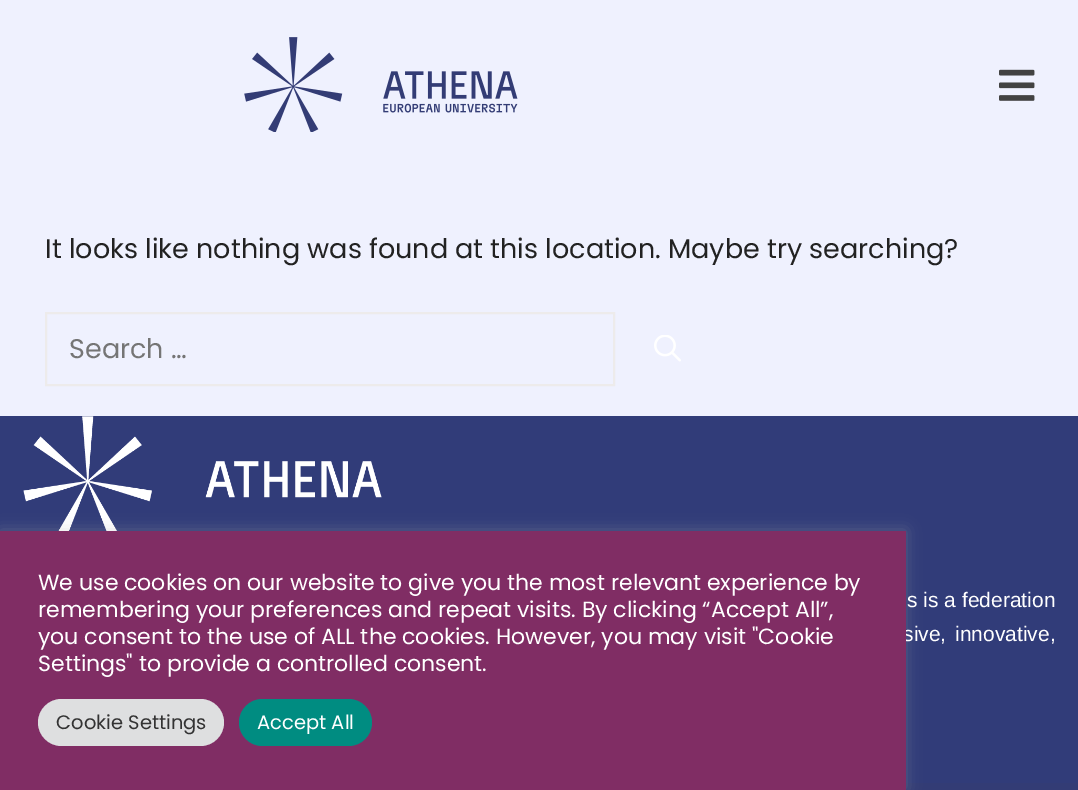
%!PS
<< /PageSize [1078 790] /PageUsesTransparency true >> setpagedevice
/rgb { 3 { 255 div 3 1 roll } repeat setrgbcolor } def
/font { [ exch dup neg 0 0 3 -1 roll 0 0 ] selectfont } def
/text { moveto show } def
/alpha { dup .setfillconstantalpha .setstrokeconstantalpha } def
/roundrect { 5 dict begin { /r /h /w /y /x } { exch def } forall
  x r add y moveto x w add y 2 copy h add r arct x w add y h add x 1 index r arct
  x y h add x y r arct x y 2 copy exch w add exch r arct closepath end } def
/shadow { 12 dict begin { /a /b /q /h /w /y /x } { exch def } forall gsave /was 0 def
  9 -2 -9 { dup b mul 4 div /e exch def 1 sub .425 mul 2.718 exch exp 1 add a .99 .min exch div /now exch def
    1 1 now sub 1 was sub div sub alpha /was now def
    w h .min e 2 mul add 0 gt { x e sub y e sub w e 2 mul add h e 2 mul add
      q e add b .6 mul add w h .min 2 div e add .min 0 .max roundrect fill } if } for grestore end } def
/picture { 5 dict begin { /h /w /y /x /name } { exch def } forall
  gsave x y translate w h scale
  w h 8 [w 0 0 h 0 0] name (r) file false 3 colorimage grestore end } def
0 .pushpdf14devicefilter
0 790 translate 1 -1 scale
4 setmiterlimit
239 241 254 rgb
0 0 1078 790 rectfill
(img_01.rgb) 244 37 274 95 picture
(img_02.rgb) 999 69 36 32 picture
237 235 235 rgb
2 setlinewidth
46 313 568 72 rectstroke
(img_03.rgb) 654 335 27 27 picture
49 60 121 rgb
0 416 1078 367 rectfill
(img_04.rgb) 23 416 359 115 picture
51 60 117 rgb
906 783 172 7 rectfill
172 171 171 rgb
0 530 906 259 0 7.5 0.3 shadow
/Poppins-Regular 27 font
34 34 34 rgb
(It looks like nothing was found at this location. Maybe try searching?) 45 258 text
117 117 117 rgb
(Search …) 69 358 text
/LiberationSans-Regular 21 font
255 255 255 rgb
(s is a federation) 907 607 text
903 641 moveto 3 0 32 (sive, innovative,) widthshow
128 45 100 rgb
0 531 906 259 rectfill
0 140 129 rgb
239 699 133 47 23.5 roundrect fill
/Poppins-Regular 19.5 font
255 255 255 rgb
(Accept All) 257 729 text
222 223 224 rgb
38 699 186 47 23.5 roundrect fill
51 51 51 rgb
(Cookie Settings) 56 729 text
/Poppins-Regular 22 font
255 255 255 rgb
(Settings" to provide a controlled consent.) 38 671 text
(you consent to the use of ALL the cookies. However, you may visit "Cookie) 38 644 text
(remembering your preferences and repeat visits. By clicking “Accept All”,) 38 617 text
(We use cookies on our website to give you the most relevant experience by) 38 590 text
.poppdf14devicefilter showpage
